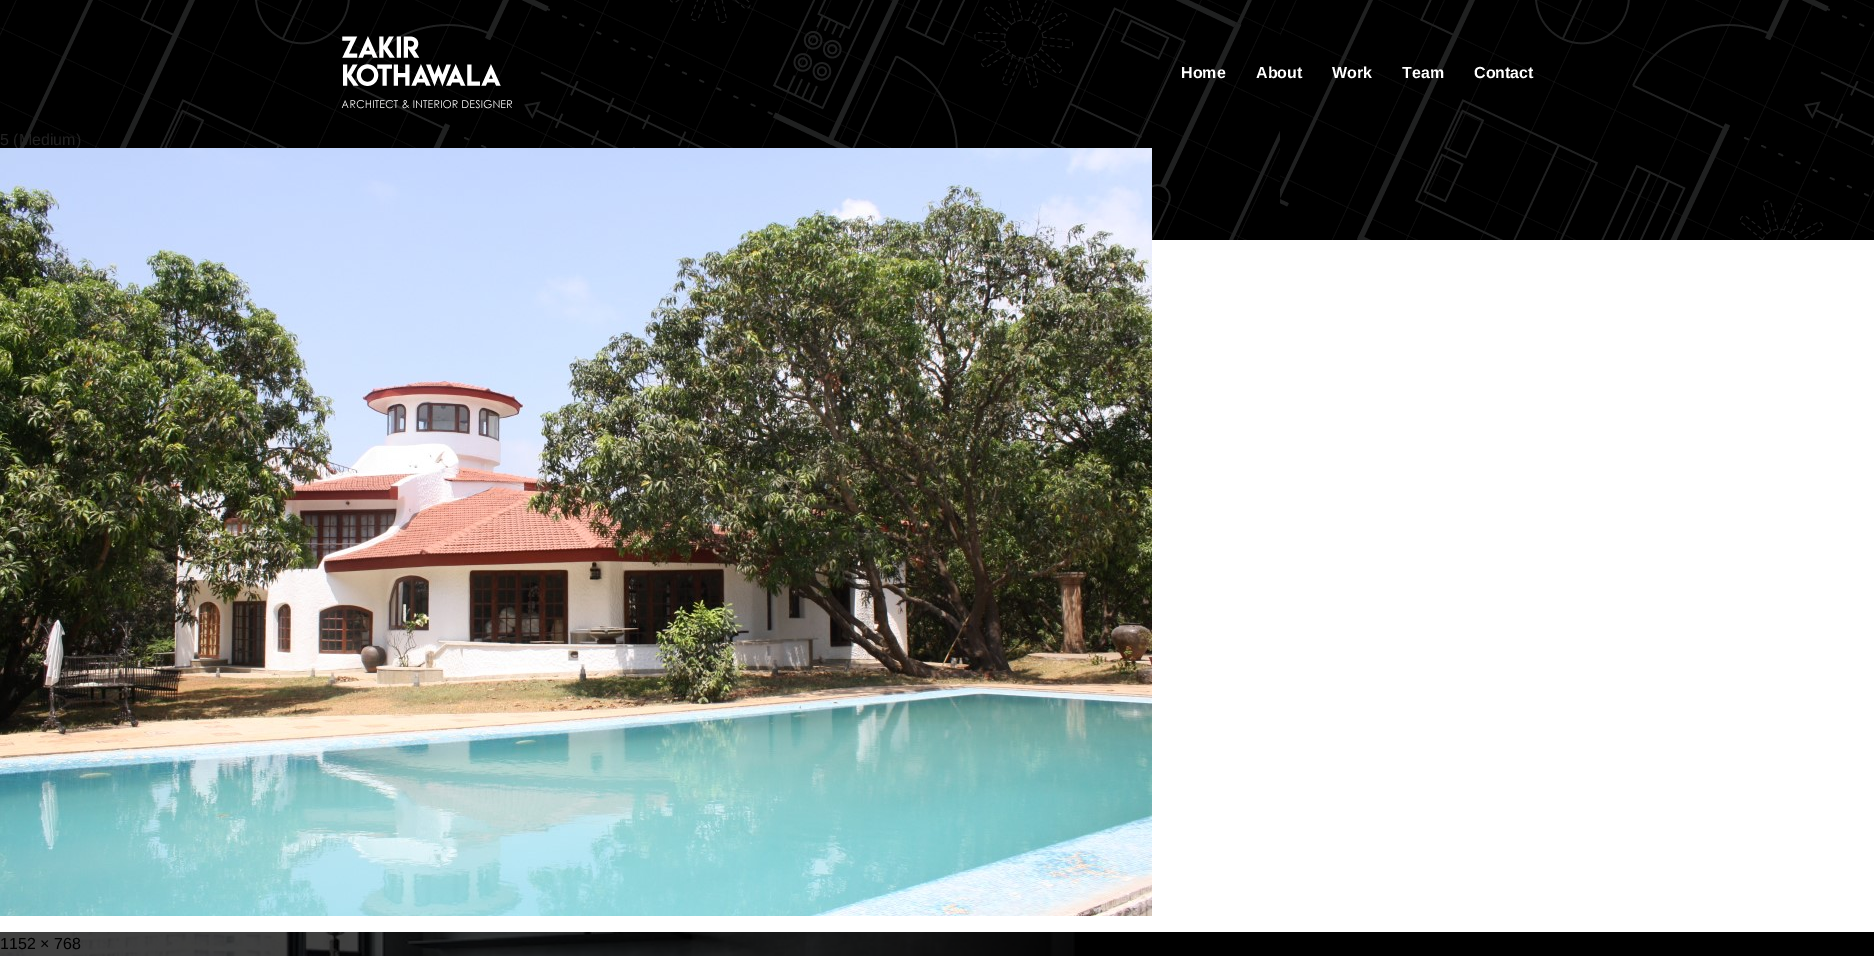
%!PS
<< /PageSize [1874 963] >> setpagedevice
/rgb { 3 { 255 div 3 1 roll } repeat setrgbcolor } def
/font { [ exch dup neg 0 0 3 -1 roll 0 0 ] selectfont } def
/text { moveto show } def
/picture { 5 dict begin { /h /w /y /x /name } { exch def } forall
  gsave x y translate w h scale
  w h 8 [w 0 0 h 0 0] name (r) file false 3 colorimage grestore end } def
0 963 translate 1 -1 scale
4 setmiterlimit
255 255 255 rgb
0 0 1874 963 rectfill
0 0 0 rgb
0 0 1874 240 rectfill
(img_01.rgb) 0 0 1874 240 picture
(img_02.rgb) 341 36 171 73 picture
(img_03.rgb) 0 148 1152 768 picture
1075 932 799 24 rectfill
(img_04.rgb) 0 932 1075 24 picture
/LiberationSans-Bold 16 font
255 255 255 rgb
(Home) 1181 78 text
(About) 1256 78 text
(Work) 1332 78 text
(Team) 1402 78 text
(Contact) 1474 78 text
gsave
0 132 1874 16 rectclip
/LiberationSans-Regular 16 font
34 34 34 rgb
(5 \(Medium\)) 0 145 text
grestore
/LiberationSans-Regular 16 font
0 0 0 rgb
(1152 × 768) 0 949 text
showpage
